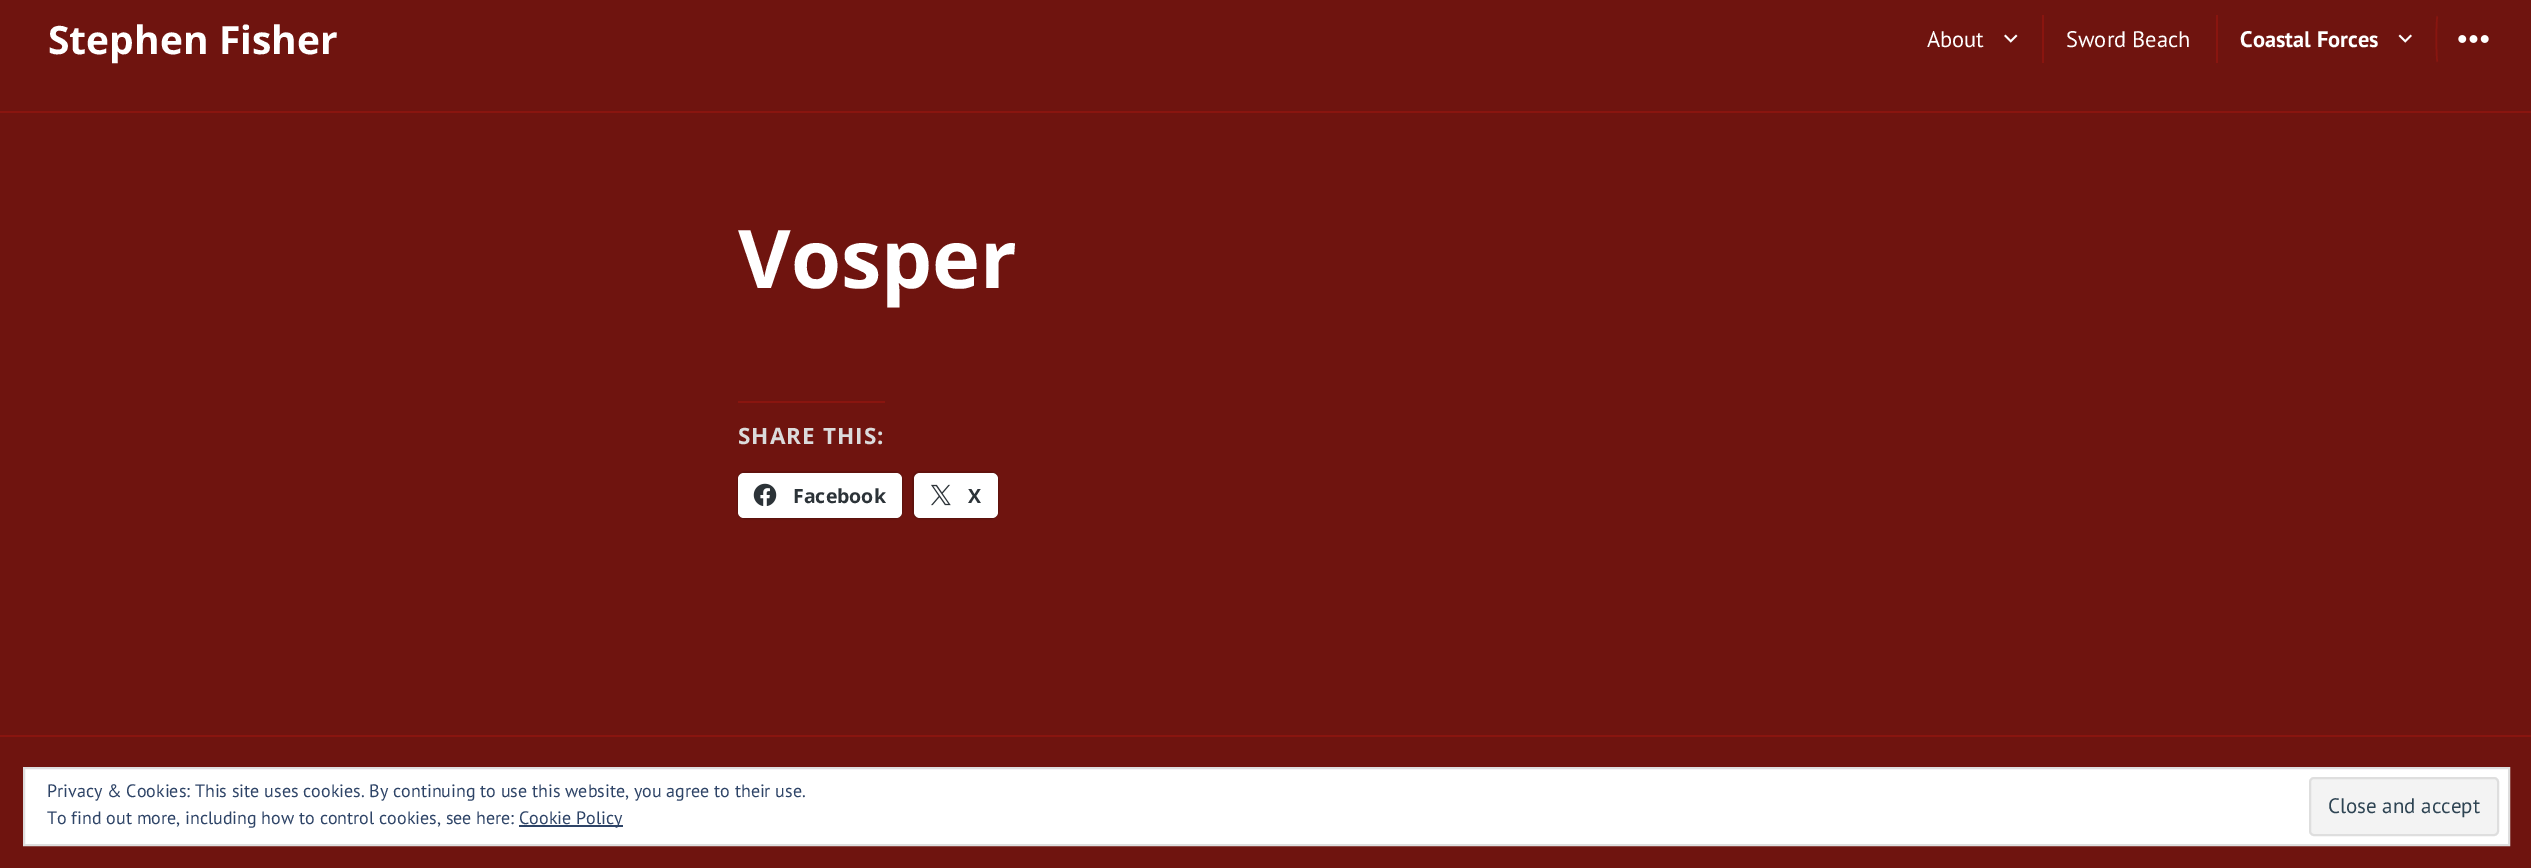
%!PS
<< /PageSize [2531 868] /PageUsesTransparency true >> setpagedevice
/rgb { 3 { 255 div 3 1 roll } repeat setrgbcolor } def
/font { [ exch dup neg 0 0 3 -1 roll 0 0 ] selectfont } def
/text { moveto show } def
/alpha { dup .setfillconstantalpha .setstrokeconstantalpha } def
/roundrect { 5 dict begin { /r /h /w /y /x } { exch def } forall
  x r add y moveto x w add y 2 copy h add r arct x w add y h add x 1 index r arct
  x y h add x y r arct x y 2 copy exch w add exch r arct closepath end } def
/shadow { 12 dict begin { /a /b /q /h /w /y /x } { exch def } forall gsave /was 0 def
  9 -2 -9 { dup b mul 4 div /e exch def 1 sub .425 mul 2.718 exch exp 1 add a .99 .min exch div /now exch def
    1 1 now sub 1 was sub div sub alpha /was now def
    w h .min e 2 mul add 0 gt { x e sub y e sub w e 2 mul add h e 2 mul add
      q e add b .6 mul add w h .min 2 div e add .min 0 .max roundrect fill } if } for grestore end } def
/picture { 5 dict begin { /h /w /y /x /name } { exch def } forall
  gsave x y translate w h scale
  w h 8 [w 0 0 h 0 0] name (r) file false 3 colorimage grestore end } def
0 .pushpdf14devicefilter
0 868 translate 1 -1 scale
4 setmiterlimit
111 20 15 rgb
0 0 2531 868 rectfill
137 21 15 rgb
0 111 2531 2 rectfill
(img_01.rgb) 2004 34 14 9 picture
2042 15 2 48 rectfill
2216 15 2 48 rectfill
(img_02.rgb) 2398 34 14 9 picture
1.5 setlinewidth
2437.5 61.5 moveto -1.5 -1 -1.5 -44 0 -45 rcurveto stroke
(img_03.rgb) 2458 35 31 8 picture
738 401 147 2 rectfill
98 18 13 rgb
2 setlinewidth
738 472 164 46 7 roundrect stroke
0 0 0 rgb
738 474 164 45 6 1.5 0.12 shadow
255 255 255 rgb
738 473 164 45 6 roundrect fill
(img_04.rgb) 753 483 24 23 picture
98 18 13 rgb
913 472 85 46 7 roundrect stroke
0 0 0 rgb
914 474 84 45 6 1.5 0.12 shadow
255 255 255 rgb
914 473 84 45 6 roundrect fill
(img_05.rgb) 931 484 20 22 picture
137 21 15 rgb
0 735 2531 2 rectfill
255 255 255 rgb
24 768 moveto 2485 0 rlineto 0 77 rlineto -2485 0 rlineto closepath gsave fill grestore
222 222 222 rgb
stroke
46 68 103 rgb
519 825 104 2 rectfill
243 243 243 rgb
2310 778 188 57 4 roundrect gsave fill grestore
222 222 222 rgb
stroke
/OpenSans-Bold 39 font
255 255 255 rgb
(Stephen Fisher) 48 54 text
/PTSans-Regular 22.5 font
(About) 1927 47 text
(Sword Beach) 2066 47 text
/PTSans-Bold 22.5 font
(Coastal Forces) 2240 47 text
/OpenSans-Bold 81 font
(Vosper) 738 288 text
/OpenSans-Bold 22.5 font
219 219 219 rgb
738 444 moveto 1.1 0 (SHARE THIS:) ashow
/OpenSans-Bold 19.5 font
44 51 56 rgb
(Facebook) 793 503 text
(X) 968 503 text
/PTSans-Regular 18 font
46 68 103 rgb
(Privacy & Cookies: This site uses cookies. By continuing to use this website, you agree to their use.) 47 797 text
(To find out more, including how to control cookies, see here:) 47 824 text
(Cookie Policy) 519 824 text
/PTSans-Regular 21 font
46 68 83 rgb
(Close and accept) 2328 813 text
.poppdf14devicefilter showpage
